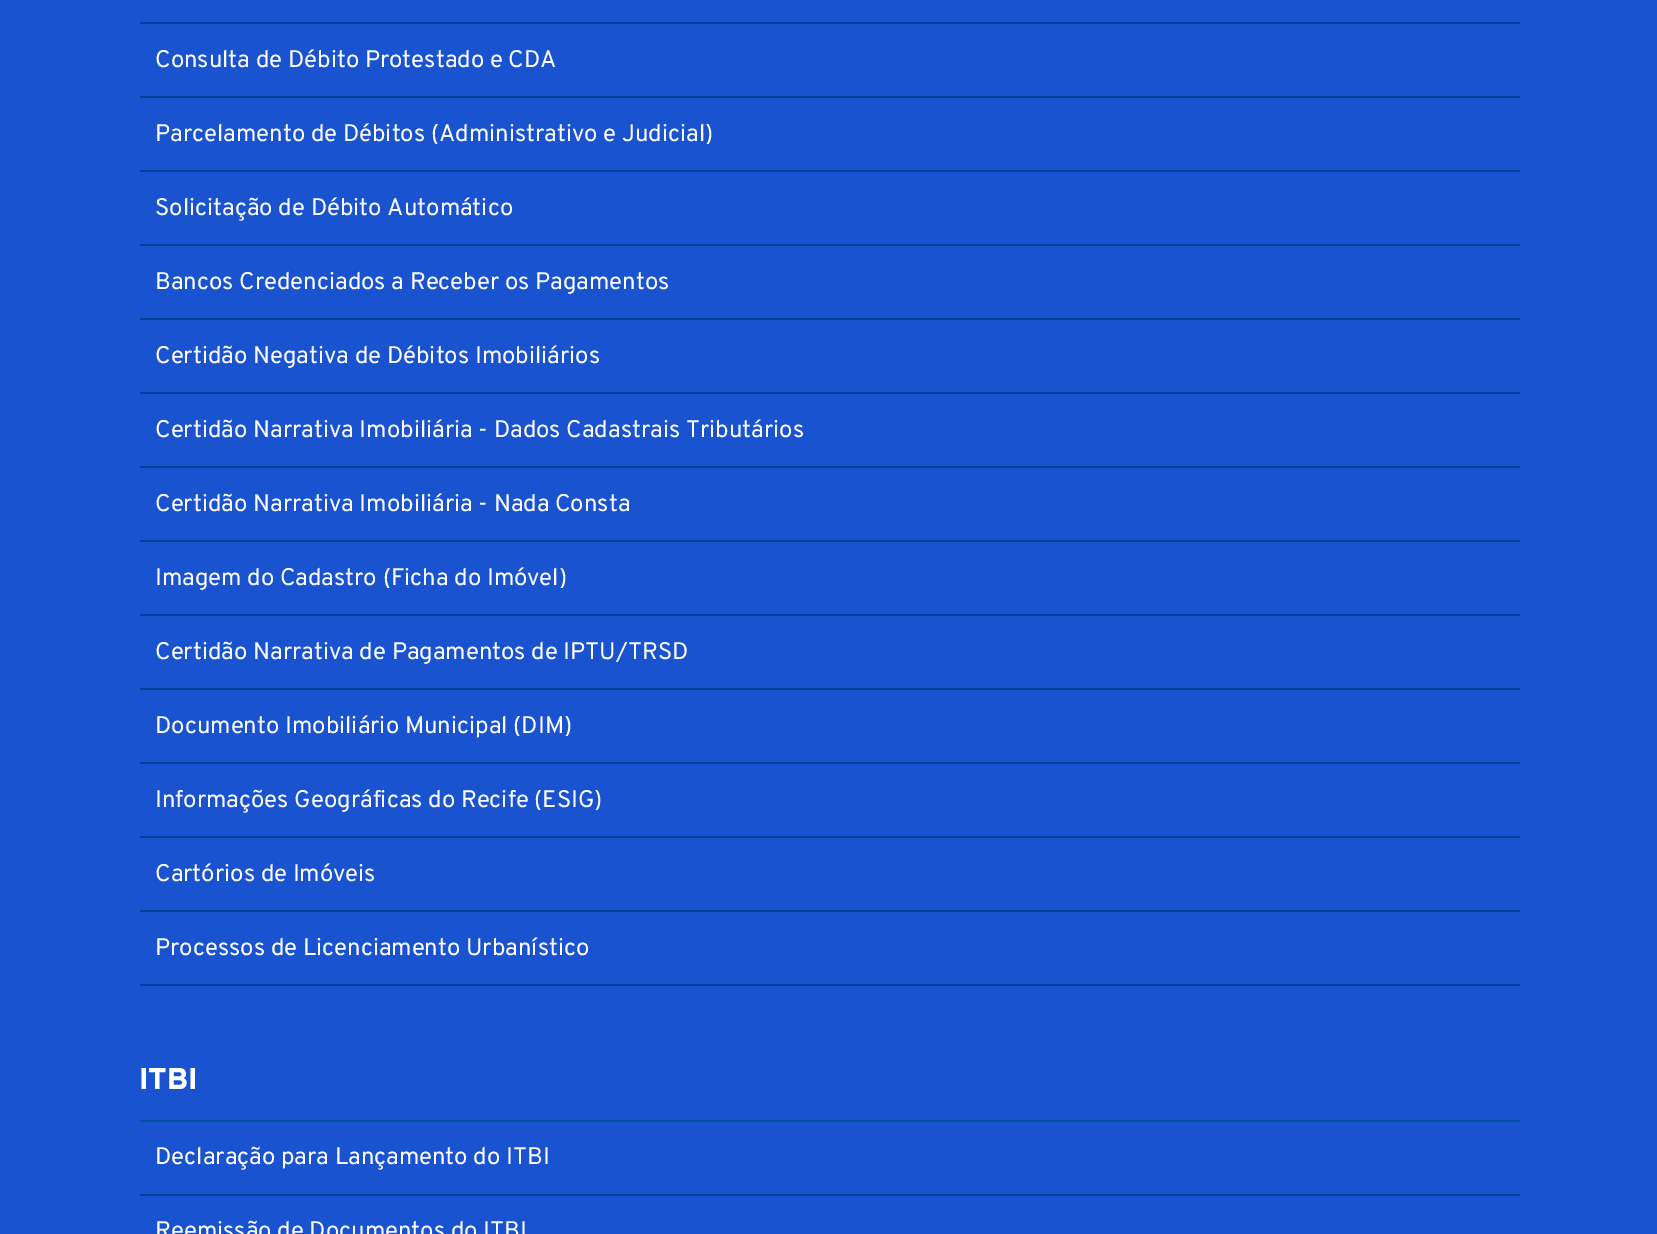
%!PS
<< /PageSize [1657 1234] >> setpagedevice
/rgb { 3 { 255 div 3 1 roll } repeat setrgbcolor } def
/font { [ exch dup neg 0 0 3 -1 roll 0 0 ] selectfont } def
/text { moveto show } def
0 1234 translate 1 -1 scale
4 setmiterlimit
25 83 208 rgb
0 0 1657 1234 rectfill
2 65 149 rgb
140 22 1380 2 rectfill
140 96 1380 2 rectfill
140 170 1380 2 rectfill
140 244 1380 2 rectfill
140 318 1380 2 rectfill
140 392 1380 2 rectfill
140 466 1380 2 rectfill
140 540 1380 2 rectfill
140 614 1380 2 rectfill
140 688 1380 2 rectfill
140 762 1380 2 rectfill
140 836 1380 2 rectfill
140 910 1380 2 rectfill
140 984 1380 2 rectfill
4 79 161 rgb
140 1120 1380 2 rectfill
2 65 149 rgb
140 1194 1380 2 rectfill
/Overpass-Regular 24 font
255 255 255 rgb
(Consulta de Débito Protestado e CDA) 155 67 text
(Parcelamento de Débitos \(Administrativo e Judicial\)) 155 141 text
(Solicitação de Débito Automático) 155 215 text
(Bancos Credenciados a Receber os Pagamentos) 155 289 text
(Certidão Negativa de Débitos Imobiliários) 155 363 text
(Certidão Narrativa Imobiliária - Dados Cadastrais Tributários) 155 437 text
(Certidão Narrativa Imobiliária - Nada Consta) 155 511 text
(Imagem do Cadastro \(Ficha do Imóvel\)) 155 585 text
(Certidão Narrativa de Pagamentos de IPTU/TRSD) 155 659 text
(Documento Imobiliário Municipal \(DIM\)) 155 733 text
(Informações Geográficas do Recife \(ESIG\)) 155 807 text
(Cartórios de Imóveis) 155 881 text
(Processos de Licenciamento Urbanístico) 155 955 text
/Overpass-Black 30 font
(ITBI) 139 1089 text
/Overpass-Regular 24 font
(Declaração para Lançamento do ITBI) 155 1164 text
(Reemissão de Documentos do ITBI) 155 1238 text
showpage
